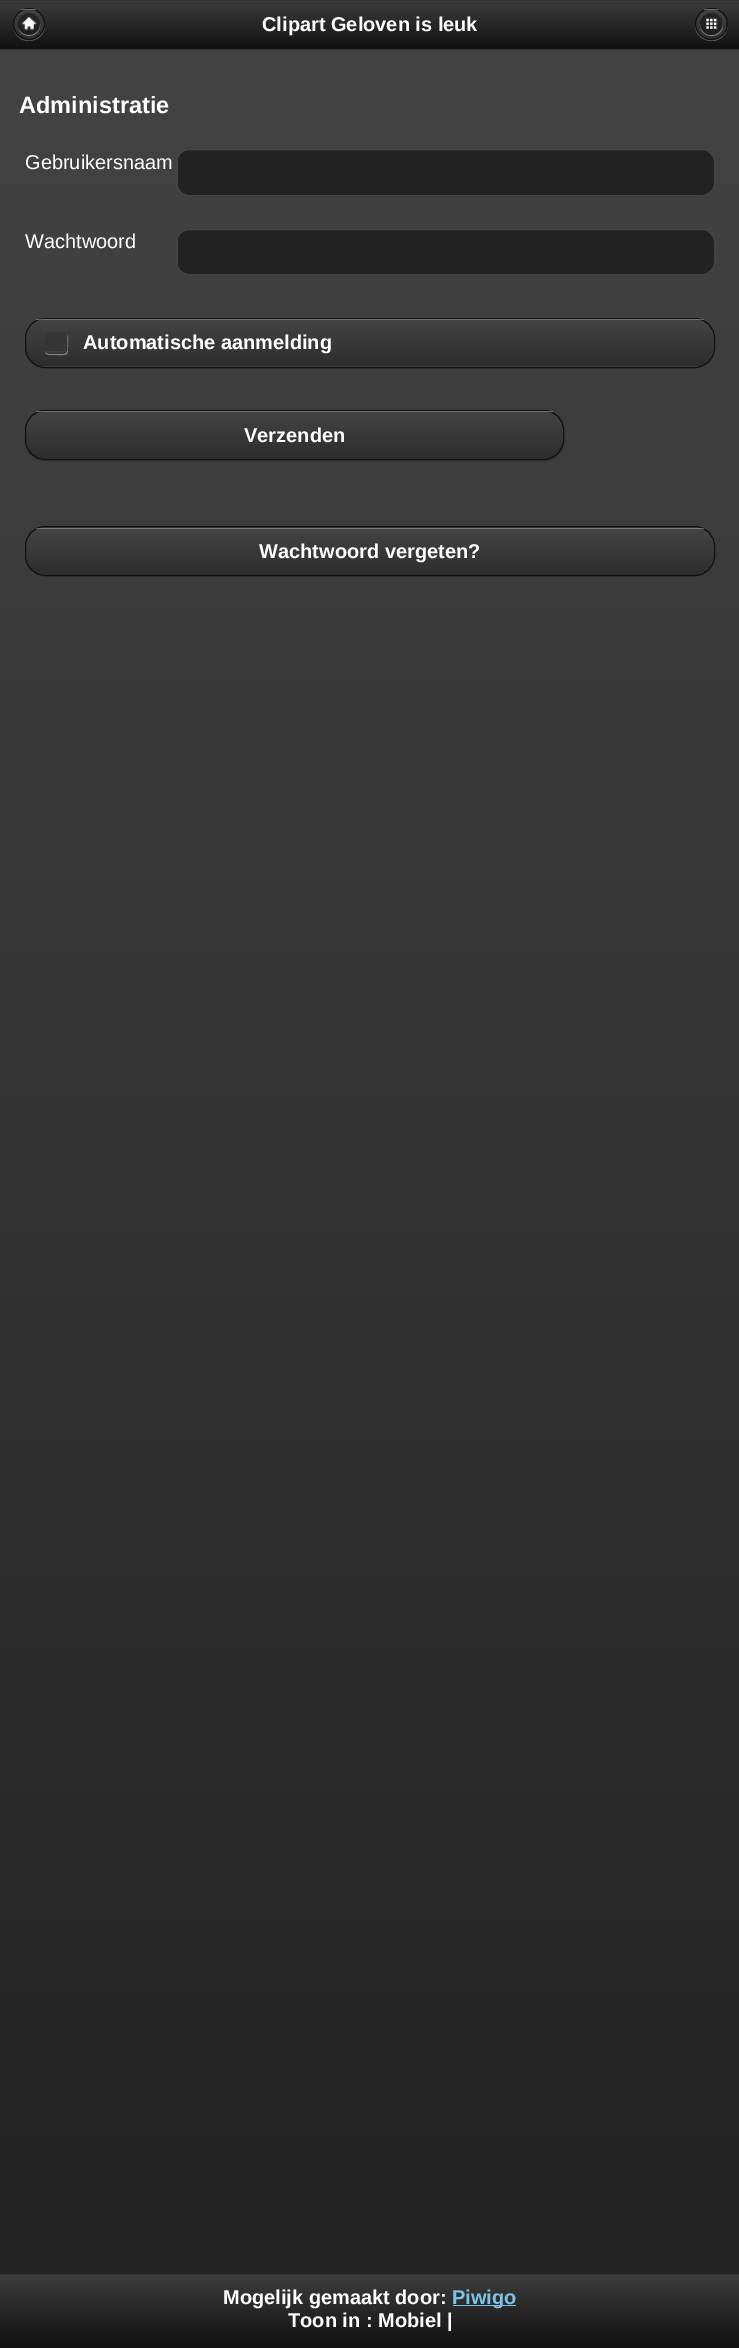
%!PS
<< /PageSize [739 2348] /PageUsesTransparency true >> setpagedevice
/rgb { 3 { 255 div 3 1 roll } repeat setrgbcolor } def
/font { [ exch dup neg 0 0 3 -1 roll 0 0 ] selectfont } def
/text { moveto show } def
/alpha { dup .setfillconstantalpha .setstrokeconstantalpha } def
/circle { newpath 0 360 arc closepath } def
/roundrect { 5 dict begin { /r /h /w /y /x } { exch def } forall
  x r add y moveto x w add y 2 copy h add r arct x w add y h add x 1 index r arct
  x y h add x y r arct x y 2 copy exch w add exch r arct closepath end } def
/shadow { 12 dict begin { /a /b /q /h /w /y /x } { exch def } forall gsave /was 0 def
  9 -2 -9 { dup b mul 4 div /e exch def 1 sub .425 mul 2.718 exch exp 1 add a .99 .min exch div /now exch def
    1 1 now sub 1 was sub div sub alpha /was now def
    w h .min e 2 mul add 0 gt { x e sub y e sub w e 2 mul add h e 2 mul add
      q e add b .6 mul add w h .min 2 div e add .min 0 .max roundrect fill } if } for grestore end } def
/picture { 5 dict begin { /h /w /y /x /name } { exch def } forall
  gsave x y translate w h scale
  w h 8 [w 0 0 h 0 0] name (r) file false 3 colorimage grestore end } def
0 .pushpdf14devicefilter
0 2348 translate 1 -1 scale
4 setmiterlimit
255 255 255 rgb
0 0 739 2348 rectfill
gsave 0 50 moveto 739 0 rlineto 0 2224 rlineto -739 0 rlineto closepath clip newpath
<< /ShadingType 2 /ColorSpace /DeviceRGB /Coords [370 0 370 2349] /Extend [true true] /Function << /FunctionType 2 /Domain [0 1] /C0 [0.267 0.267 0.267] /C1 [0.133 0.133 0.133] /N 1 >> >> shfill grestore
gsave 0 1 moveto 739 0 rlineto 0 48 rlineto -739 0 rlineto closepath clip newpath
<< /ShadingType 2 /ColorSpace /DeviceRGB /Coords [370 1.2 370 49] /Extend [true true] /Function << /FunctionType 2 /Domain [0 1] /C0 [0.235 0.235 0.235] /C1 [0.067 0.067 0.067] /N 1 >> >> shfill grestore
51 51 51 rgb
0 0 739 1 rectfill
0 49 739 1 rectfill
0.3 alpha
255 255 255 rgb
45 24.5 moveto -0.5 17 -24 21.5 -31 6 rcurveto 6 17 31.5 12 31 -6 rcurveto closepath fill
1 alpha
gsave 29 24 15 circle clip newpath
<< /ShadingType 2 /ColorSpace /DeviceRGB /Coords [29 9 29 39] /Extend [true true] /Function << /FunctionType 2 /Domain [0 1] /C0 [0.267 0.267 0.267] /C1 [0.176 0.176 0.176] /N 1 >> >> shfill grestore
17 17 17 rgb
29 24 15.5 circle stroke
0.3 alpha
255 255 255 rgb
21 9 15 1 rectfill
0.4 alpha
18.5 28.5 moveto 4.5 12 22 8.5 21.5 -4 rcurveto -0.5 11.5 -16.5 14.5 -21.5 4 rcurveto closepath fill
0 0 0 rgb
29 24 11 circle fill
1 alpha
(img_01.rgb) 21 16 16 15 picture
0.3 alpha
255 255 255 rgb
695 24.5 moveto -0.5 18 25 23 31.5 6.5 rcurveto 2 -4 2 -8.5 0 -12.5 rcurveto 5.5 15.5 -14 29 -26.5 17 rcurveto -3 -3 -5 -7 -5 -11 rcurveto closepath fill
1 alpha
gsave 711 24 15 circle clip newpath
<< /ShadingType 2 /ColorSpace /DeviceRGB /Coords [711 9 711 39] /Extend [true true] /Function << /FunctionType 2 /Domain [0 1] /C0 [0.267 0.267 0.267] /C1 [0.176 0.176 0.176] /N 1 >> >> shfill grestore
17 17 17 rgb
695.5 8.5 32 31 15.5 roundrect stroke
0.3 alpha
255 255 255 rgb
704 9 15 1 rectfill
0.4 alpha
700 24.5 moveto -0.5 13.5 20 16 23 2.5 rcurveto 0 -2 0 -4.5 -1 -6.5 rcurveto 3.5 10.5 -10 19.5 -18.5 11.5 rcurveto -2 -2 -3.5 -5 -3.5 -7.5 rcurveto closepath fill
0 0 0 rgb
700 13 23 22 11 roundrect fill
1 alpha
(img_02.rgb) 706 18 12 12 picture
34 34 34 rgb
178 150 536 45 11 roundrect fill
68 68 68 rgb
176.5 149.5 538 46 12.5 roundrect stroke
34 34 34 rgb
178 230 536 44 11 roundrect fill
68 68 68 rgb
176.5 229.5 538 45 12.5 roundrect stroke
gsave 26 319 688 47 19 roundrect clip newpath
<< /ShadingType 2 /ColorSpace /DeviceRGB /Coords [370 319 370 366] /Extend [true true] /Function << /FunctionType 2 /Domain [0 1] /C0 [0.267 0.267 0.267] /C1 [0.176 0.176 0.176] /N 1 >> >> shfill grestore
17 17 17 rgb
25.5 318.5 689 49 19.5 roundrect stroke
0.3 alpha
255 255 255 rgb
36 319 668 1 rectfill
0.4 alpha
45 350 moveto 0 4.5 2.5 5 6.5 5 rcurveto 5 0 rlineto 12 0 11.5 1 11.5 -11 rcurveto 0 -2.5 0.5 -7 -0.5 -9 rcurveto 0 15 rlineto 0 2 -1.5 4 -3.5 4 rcurveto -15 0 rlineto -2.5 0 -4 -2 -4 -4 rcurveto closepath fill
1 alpha
(img_03.rgb) 45 332 21 21 picture
0 0 0 rgb
25 411 539 50 20 2 0.2 shadow
gsave 26 411 537 48 19 roundrect clip newpath
<< /ShadingType 2 /ColorSpace /DeviceRGB /Coords [294 411 294 459] /Extend [true true] /Function << /FunctionType 2 /Domain [0 1] /C0 [0.267 0.267 0.267] /C1 [0.176 0.176 0.176] /N 1 >> >> shfill grestore
17 17 17 rgb
25.5 410.5 538 49 19.5 roundrect stroke
0.3 alpha
255 255 255 rgb
36 411 517 1 rectfill
1 alpha
gsave 26 528 688 47 19 roundrect clip newpath
<< /ShadingType 2 /ColorSpace /DeviceRGB /Coords [370 527 370 575] /Extend [true true] /Function << /FunctionType 2 /Domain [0 1] /C0 [0.267 0.267 0.267] /C1 [0.176 0.176 0.176] /N 1 >> >> shfill grestore
17 17 17 rgb
25.5 526.5 689 49 19.5 roundrect stroke
0.3 alpha
255 255 255 rgb
36 528 668 1 rectfill
1 alpha
gsave 0 2275 moveto 739 0 rlineto 0 73 rlineto -739 0 rlineto closepath clip newpath
<< /ShadingType 2 /ColorSpace /DeviceRGB /Coords [370 2275 370 2348] /Extend [true true] /Function << /FunctionType 2 /Domain [0 1] /C0 [0.235 0.235 0.235] /C1 [0.067 0.067 0.067] /N 1 >> >> shfill grestore
51 51 51 rgb
0 2274 739 1 rectfill
124 196 231 rgb
453 2305 63 1 rectfill
/LiberationSans-Bold 20 font
255 255 255 rgb
(Clipart Geloven is leuk) 262 31 text
/LiberationSans-Bold 23.5 font
(Administratie) 19 113 text
/LiberationSans-Regular 20 font
(Gebruikersnaam) 25 169 text
(Wachtwoord) 25 248 text
/LiberationSans-Bold 20 font
(Automatische aanmelding) 83 349 text
(Verzenden) 244 442 text
(Wachtwoord vergeten?) 259 558 text
(Mogelijk gemaakt door:) 223 2304 text
124 196 231 rgb
(Piwigo) 452 2304 text
255 255 255 rgb
(Toon in : Mobiel) 288 2327 text
gsave
19 2286 702 45 rectclip
(|) 447 2327 text
grestore
.poppdf14devicefilter showpage
